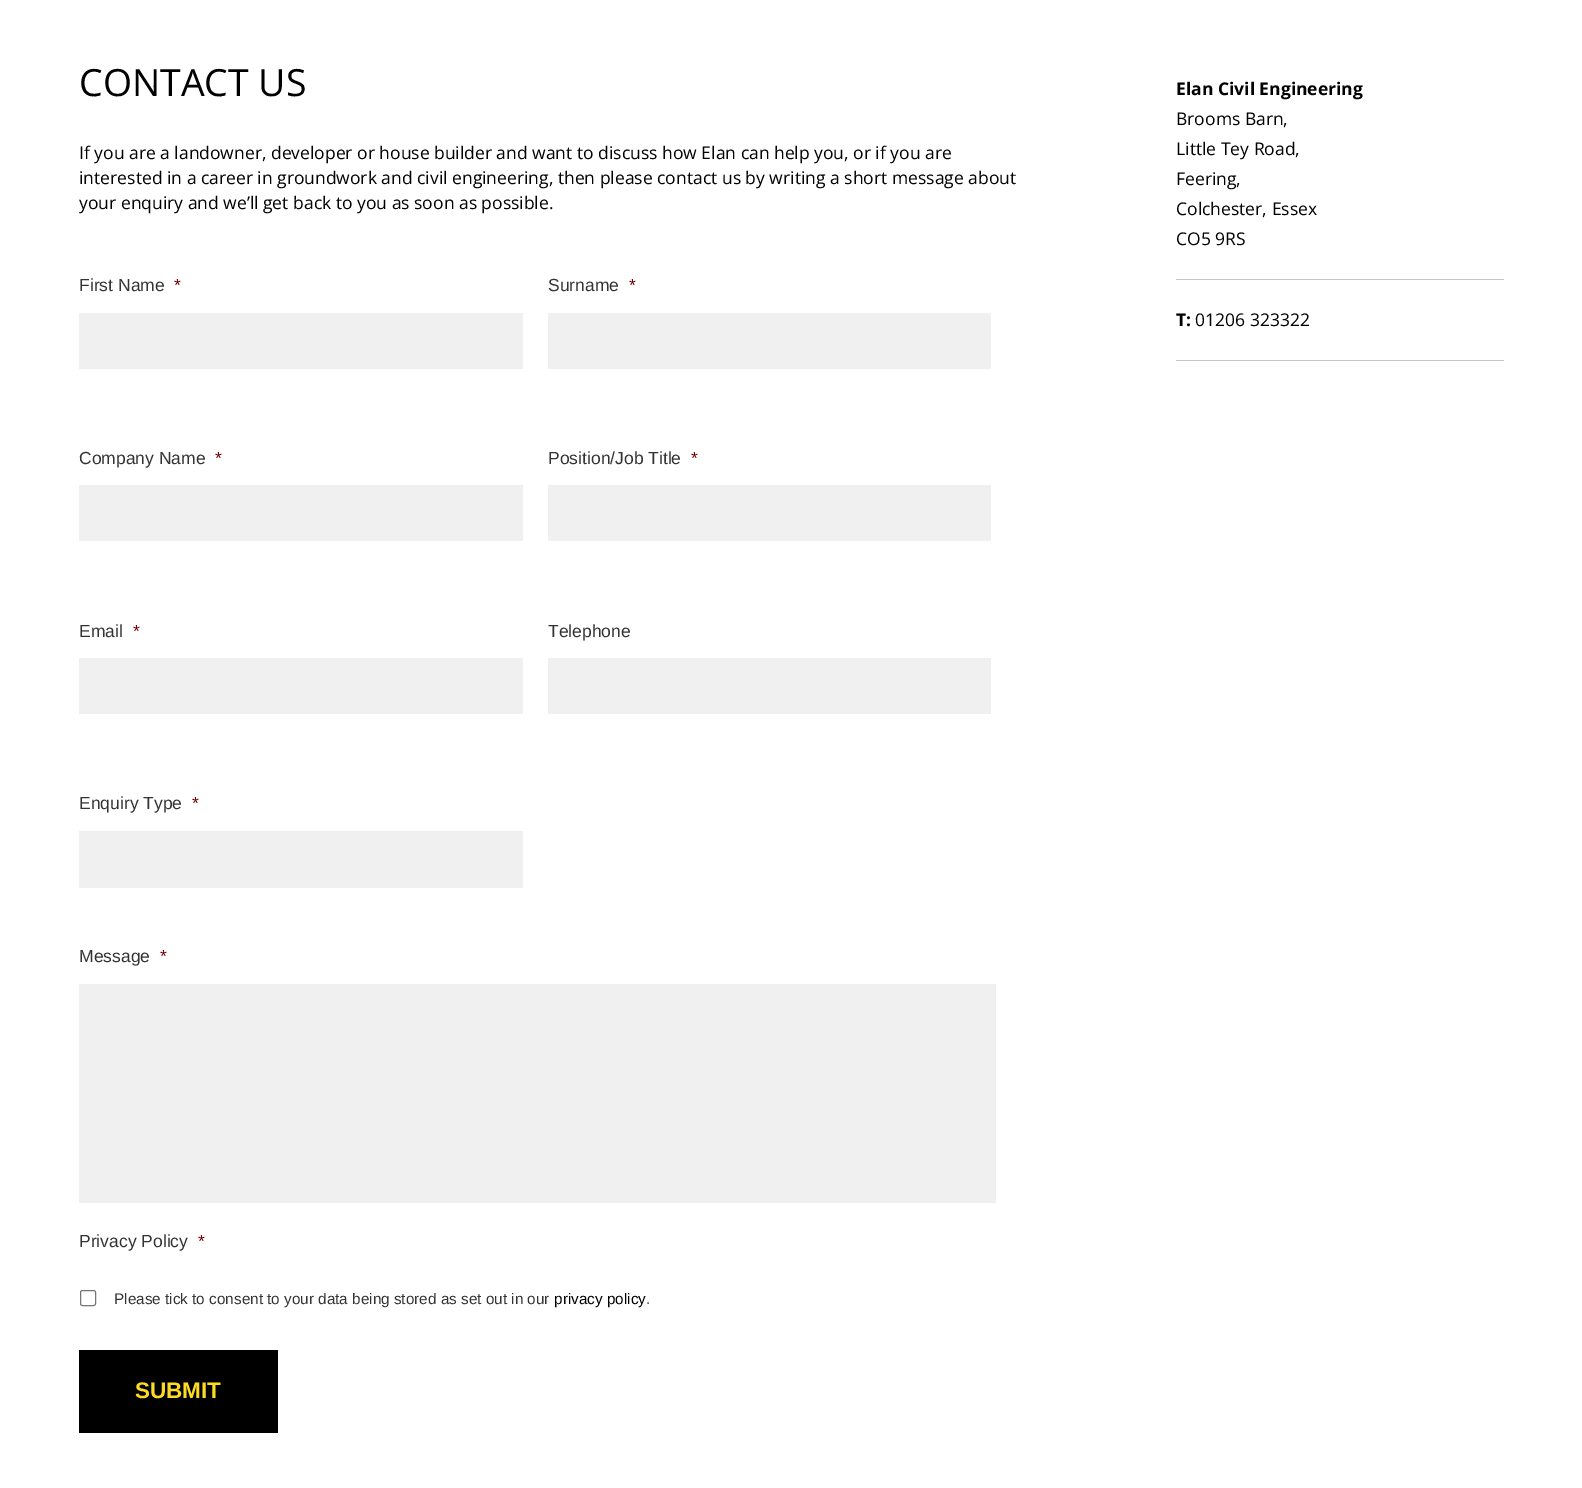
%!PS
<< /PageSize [1582 1488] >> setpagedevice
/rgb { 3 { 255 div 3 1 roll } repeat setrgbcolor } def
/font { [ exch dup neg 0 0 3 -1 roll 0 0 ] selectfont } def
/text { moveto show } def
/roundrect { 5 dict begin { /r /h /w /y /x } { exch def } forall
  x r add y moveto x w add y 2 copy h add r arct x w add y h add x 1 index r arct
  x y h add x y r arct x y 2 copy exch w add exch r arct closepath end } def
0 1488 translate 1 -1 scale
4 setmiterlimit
255 255 255 rgb
0 0 1582 1488 rectfill
241 240 240 rgb
79 313 444 56 rectfill
548 313 443 56 rectfill
79 485 444 56 rectfill
548 485 443 56 rectfill
79 658 444 56 rectfill
548 658 443 56 rectfill
79 831 444 57 rectfill
79 984 917 219 rectfill
118 118 118 rgb
80.5 1290.5 15 15 2 roundrect stroke
0 0 0 rgb
79 1350 199 83 rectfill
199 199 199 rgb
1176 279 328 1 rectfill
1176 360 328 1 rectfill
/OpenSans-Regular 37.5 font
0 0 0 rgb
(CONTACT US) 79 96 text
/OpenSans-Regular 17.5 font
(If you are a landowner, developer or house builder and want to discuss how Elan can help you, or if you are) 79 159 text
(interested in a career in groundwork and civil engineering, then please contact us by writing a short message about) 79 184 text
(your enquiry and we’ll get back to you as soon as possible.) 79 209 text
/LiberationSans-Regular 17.5 font
51 51 51 rgb
(First Name) 79 291 text
121 0 0 rgb
(*) 174 291 text
51 51 51 rgb
(Surname) 548 291 text
121 0 0 rgb
(*) 629 291 text
51 51 51 rgb
(Company Name) 79 464 text
121 0 0 rgb
(*) 215 464 text
51 51 51 rgb
(Position/Job Title) 548 464 text
121 0 0 rgb
(*) 691 464 text
51 51 51 rgb
(Email) 79 637 text
121 0 0 rgb
(*) 133 637 text
51 51 51 rgb
(Telephone) 548 637 text
(Enquiry Type) 79 809 text
121 0 0 rgb
(*) 192 809 text
51 51 51 rgb
(Message) 79 962 text
121 0 0 rgb
(*) 160 962 text
51 51 51 rgb
(Privacy Policy) 79 1247 text
121 0 0 rgb
(*) 198 1247 text
/LiberationSans-Regular 15.3 font
51 51 51 rgb
(Please tick to consent to your data being stored as set out in our) 114 1304 text
0 0 0 rgb
(privacy policy) 554 1304 text
51 51 51 rgb
(.) 646 1304 text
/LiberationSans-Bold 22.5 font
253 218 36 rgb
(SUBMIT) 135 1398 text
/OpenSans-Bold 17.5 font
0 0 0 rgb
(Elan Civil Engineering) 1176 95 text
/OpenSans-Regular 17.5 font
(Brooms Barn,) 1176 125 text
(Little Tey Road,) 1176 155 text
(Feering,) 1176 185 text
(Colchester, Essex) 1176 215 text
(CO5 9RS) 1176 245 text
/OpenSans-Bold 17.5 font
(T:) 1176 326 text
/OpenSans-Regular 17.5 font
(01206 323322) 1195 326 text
showpage
